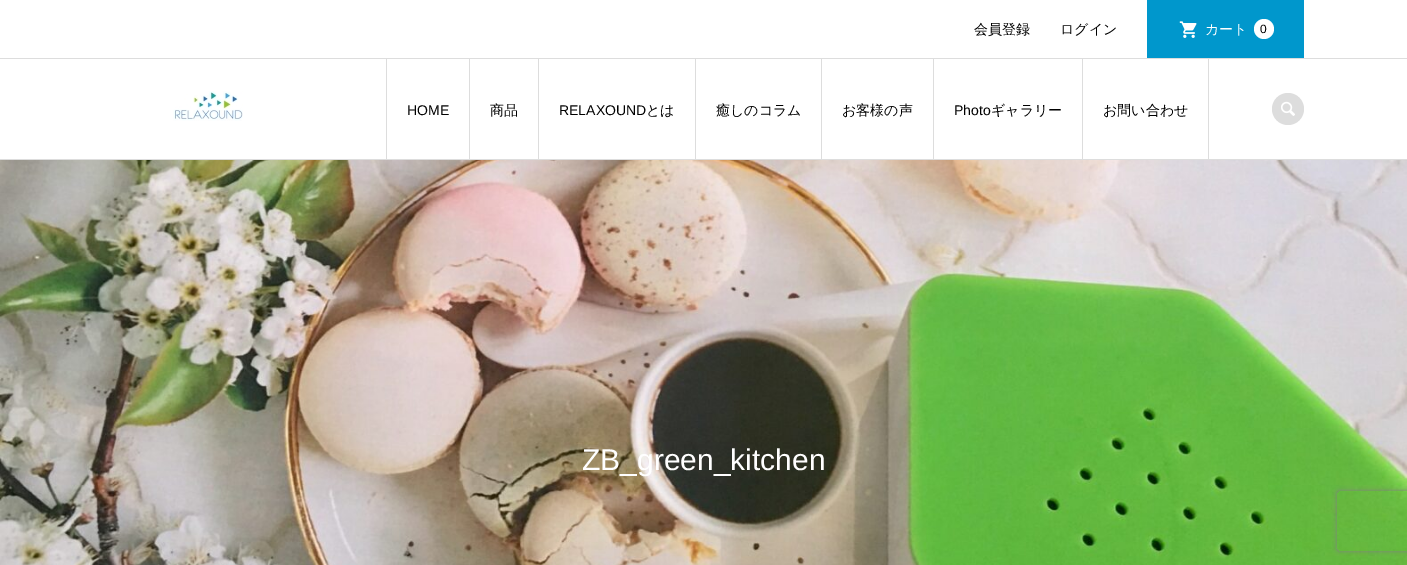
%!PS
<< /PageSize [1407 565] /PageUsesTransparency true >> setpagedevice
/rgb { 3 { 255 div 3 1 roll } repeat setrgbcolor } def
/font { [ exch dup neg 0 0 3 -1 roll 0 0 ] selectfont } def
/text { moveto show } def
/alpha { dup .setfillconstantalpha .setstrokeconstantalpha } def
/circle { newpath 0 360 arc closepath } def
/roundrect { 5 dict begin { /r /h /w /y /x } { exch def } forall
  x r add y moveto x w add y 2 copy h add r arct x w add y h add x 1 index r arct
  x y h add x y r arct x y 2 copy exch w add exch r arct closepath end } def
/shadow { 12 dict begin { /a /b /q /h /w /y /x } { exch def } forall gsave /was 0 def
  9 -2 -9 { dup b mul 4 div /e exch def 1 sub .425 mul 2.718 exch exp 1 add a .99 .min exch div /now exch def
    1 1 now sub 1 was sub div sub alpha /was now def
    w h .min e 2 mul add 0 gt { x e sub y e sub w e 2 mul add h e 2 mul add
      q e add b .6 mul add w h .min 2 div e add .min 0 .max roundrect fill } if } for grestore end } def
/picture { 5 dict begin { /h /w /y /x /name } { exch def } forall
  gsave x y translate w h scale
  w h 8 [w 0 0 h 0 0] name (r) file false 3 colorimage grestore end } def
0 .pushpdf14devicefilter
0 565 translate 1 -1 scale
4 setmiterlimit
255 255 255 rgb
0 0 1407 565 rectfill
221 221 221 rgb
0 58 1407 1 rectfill
0 151 204 rgb
1147 0 157 58 rectfill
(img_01.rgb) 1179 21 18 17 picture
255 255 255 rgb
1264 29 10 circle fill
221 221 221 rgb
0 159 1407 1 rectfill
(img_02.rgb) 173 91 70 30 picture
386 59 1 100 rectfill
469 59 1 101 rectfill
538 59 1 101 rectfill
695 59 1 101 rectfill
821 59 1 101 rectfill
933 59 1 101 rectfill
1082 59 1 101 rectfill
1208 59 1 101 rectfill
1288 109 16 circle fill
(img_03.rgb) 1281 101 14 15 picture
(img_04.rgb) 0 160 1407 405 picture
gsave
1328 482 moveto 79 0 rlineto 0 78 rlineto -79 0 rlineto closepath 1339 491 moveto 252 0 rlineto 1 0 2 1 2 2 rcurveto 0 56 rlineto 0 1 -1 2 -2 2 rcurveto -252 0 rlineto -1 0 -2 -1 -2 -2 rcurveto 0 -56 rlineto 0 -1 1 -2 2 -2 rcurveto closepath eoclip newpath
128 128 128 rgb
1337 491 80 60 2 2.5 1 shadow
grestore
/WenQuanYiZenHei-Medium 14 font
0 0 0 rgb
(会員登録) 974 34 text
(ログイン) 1060 34 text
255 255 255 rgb
(カート) 1205 34 text
/LiberationSans-Regular 12 font
0 0 0 rgb
(0) 1260 33 text
/LiberationSans-Regular 14 font
(HOME) 407 115 text
/WenQuanYiZenHei-Medium 14 font
(商品) 490 115 text
/LiberationSans-Regular 14 font
(RELAXOUND) 559 115 text
/WenQuanYiZenHei-Medium 14 font
(とは) 646 115 text
(癒しのコラム) 716 115 text
(お客様の声) 842 115 text
/LiberationSans-Regular 14 font
(Photo) 954 115 text
/WenQuanYiZenHei-Medium 14 font
(ギャラリー) 991 115 text
(お問い合わせ) 1103 115 text
/LiberationSans-Regular 30 font
255 255 255 rgb
(ZB_green_kitchen) 582 470 text
.poppdf14devicefilter showpage
